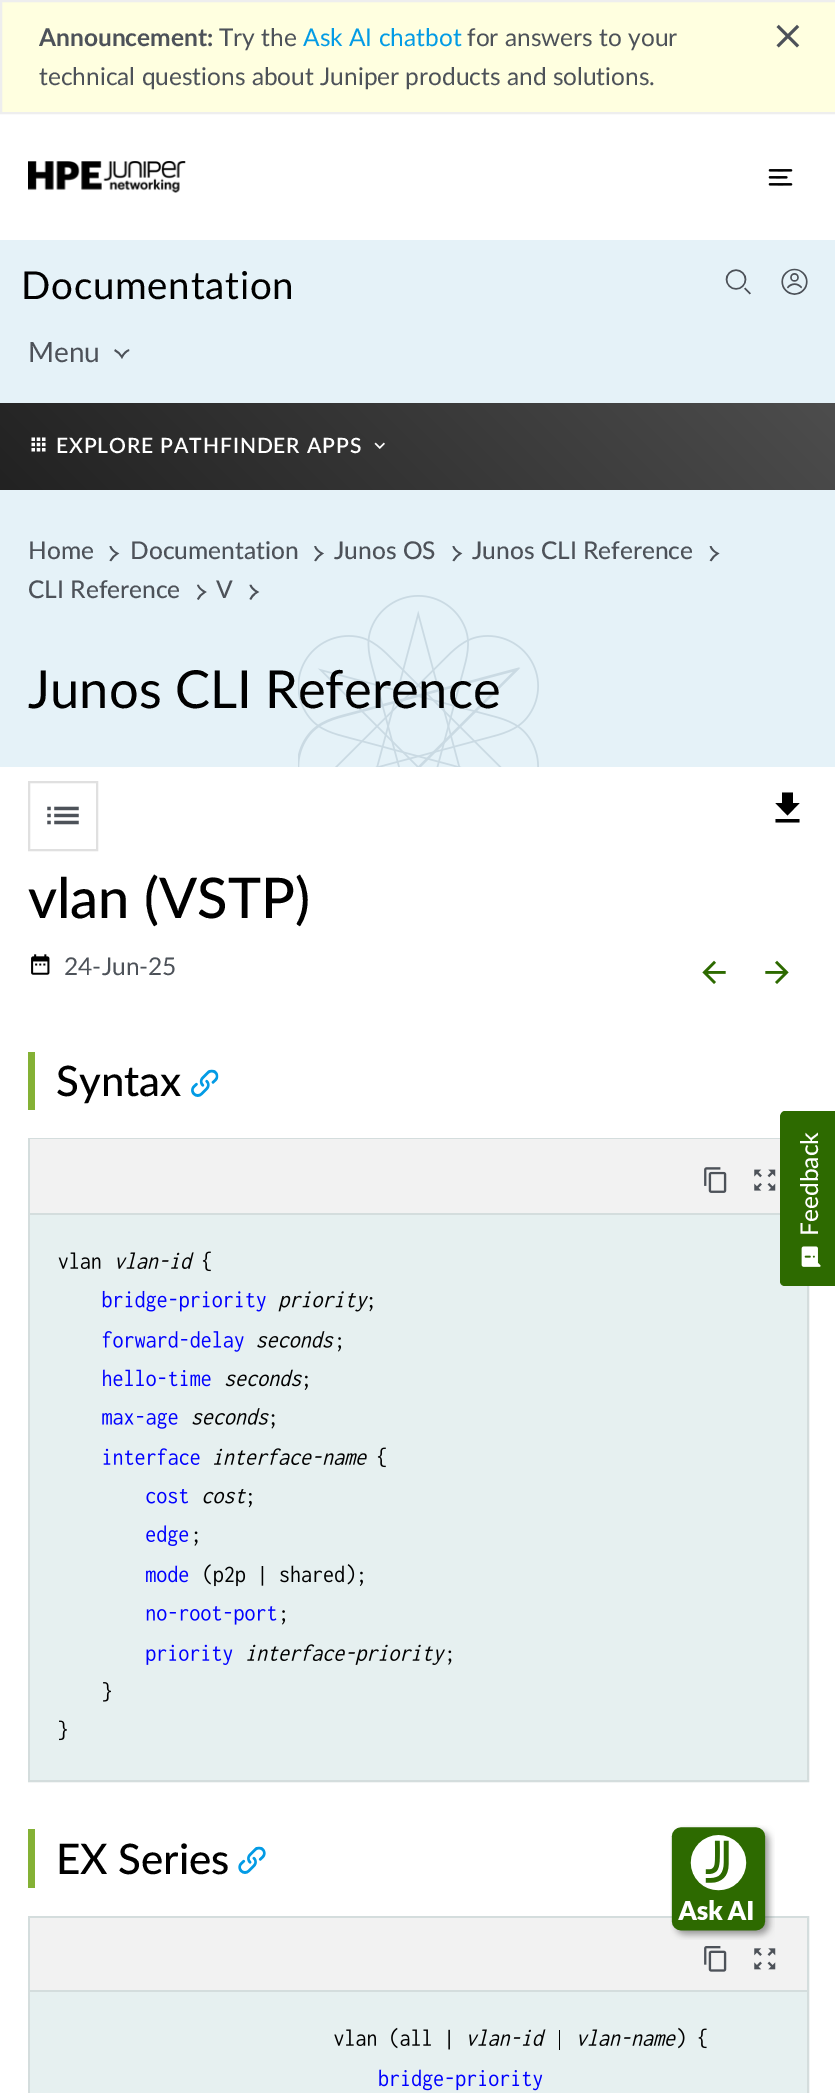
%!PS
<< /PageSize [835 2093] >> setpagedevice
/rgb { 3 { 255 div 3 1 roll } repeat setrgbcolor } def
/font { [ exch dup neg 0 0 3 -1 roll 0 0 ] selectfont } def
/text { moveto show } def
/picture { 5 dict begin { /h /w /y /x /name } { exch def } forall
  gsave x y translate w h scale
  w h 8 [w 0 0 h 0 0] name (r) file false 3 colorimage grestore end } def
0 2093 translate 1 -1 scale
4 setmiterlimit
255 255 255 rgb
0 0 835 2093 rectfill
255 255 224 rgb
1 1 moveto 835 0 rlineto 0 112 rlineto -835 0 rlineto closepath gsave fill grestore
238 238 238 rgb
2 setlinewidth
stroke
(img_01.rgb) 776 24 24 24 picture
(img_02.rgb) 28 161 158 32 picture
(img_03.rgb) 768 169 25 17 picture
229 242 248 rgb
0 240 835 163 rectfill
(img_04.rgb) 725 269 26 26 picture
(img_05.rgb) 781 268 27 27 picture
(img_06.rgb) 114 349 16 10 picture
gsave 0 403 moveto 835 0 rlineto 0 87 rlineto -835 0 rlineto closepath clip newpath
<< /ShadingType 2 /ColorSpace /DeviceRGB /Coords [187 677 649 215] /Extend [true true] /Function << /FunctionType 2 /Domain [0 1] /C0 [0.133 0.133 0.133] /C1 [0.302 0.302 0.302] /N 1 >> >> shfill grestore
(img_07.rgb) 31 437 15 15 picture
(img_08.rgb) 374 442 11 7 picture
0 490 835 277 rectfill
(img_09.rgb) 298 595 241 172 picture
(img_10.rgb) 109 546 11 16 picture
(img_11.rgb) 314 546 10 16 picture
(img_10.rgb) 452 546 11 16 picture
(img_12.rgb) 709 546 11 16 picture
(img_13.rgb) 196 584 11 16 picture
(img_14.rgb) 249 584 11 16 picture
224 224 224 rgb
29 782 68 68 rectstroke
(img_15.rgb) 47 806 32 19 picture
0 0 0 rgb
775.5 819 moveto 24 0 rlineto 0 3.5 rlineto -24 0 rlineto closepath 799.5 803 moveto -12 12.5 rlineto -12 -12.5 rlineto 6.5 0 rlineto 0 -10.5 rlineto 11 0 rlineto 0 10.5 rlineto closepath fill
(img_16.rgb) 31 954 19 21 picture
(img_17.rgb) 702 960 24 24 picture
(img_18.rgb) 765 960 24 24 picture
132 177 53 rgb
28 1052 7 58 rectfill
(img_19.rgb) 191 1069 28 28 picture
212 221 221 rgb
29 1139 779 642 rectstroke
242 242 242 rgb
30 1139 750 74 rectfill
212 221 221 rgb
30 1213 750 2 rectfill
(img_20.rgb) 704 1167 23 26 picture
(img_21.rgb) 754 1169 22 22 picture
230 240 240 rgb
30 1215 777 565 rectfill
(img_22.rgb) 58 1252 43 17 picture
(img_23.rgb) 117 1252 77 17 picture
(img_24.rgb) 202 1251 9 21 picture
(img_25.rgb) 102 1290 164 22 picture
(img_26.rgb) 278 1291 90 21 picture
(img_27.rgb) 369 1297 4 15 picture
(img_28.rgb) 102 1331 142 21 picture
(img_29.rgb) 257 1331 77 17 picture
(img_30.rgb) 338 1337 4 15 picture
(img_31.rgb) 103 1369 108 18 picture
(img_32.rgb) 225 1369 77 18 picture
(img_33.rgb) 304 1375 4 15 picture
(img_34.rgb) 102 1412 76 17 picture
(img_35.rgb) 192 1408 77 17 picture
(img_36.rgb) 271 1414 4 15 picture
(img_37.rgb) 103 1448 97 17 picture
(img_38.rgb) 214 1448 153 17 picture
(img_24.rgb) 377 1447 9 21 picture
(img_39.rgb) 146 1489 43 15 picture
(img_40.rgb) 203 1489 43 15 picture
(img_41.rgb) 248 1493 4 15 picture
(img_42.rgb) 146 1525 43 21 picture
(img_43.rgb) 194 1531 4 15 picture
(img_44.rgb) 146 1565 43 18 picture
(img_45.rgb) 204 1564 159 23 picture
(img_46.rgb) 146 1606 131 19 picture
(img_30.rgb) 282 1610 4 15 picture
(img_47.rgb) 146 1644 87 21 picture
(img_48.rgb) 247 1644 198 21 picture
(img_49.rgb) 448 1650 4 15 picture
(img_50.rgb) 103 1682 8 20 picture
(img_51.rgb) 59 1720 8 21 picture
132 177 53 rgb
28 1829 7 59 rectfill
(img_52.rgb) 238 1846 28 28 picture
212 221 221 rgb
29 1917 779 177 rectstroke
242 242 242 rgb
30 1918 777 72 rectfill
212 221 221 rgb
30 1990 777 2 rectfill
(img_53.rgb) 704 1946 23 26 picture
(img_54.rgb) 754 1948 22 22 picture
230 240 240 rgb
30 1992 777 101 rectfill
(img_55.rgb) 334 2027 116 23 picture
(img_56.rgb) 469 2029 77 17 picture
0 0 0 rgb
559 2030 1 20 rectfill
(img_57.rgb) 579 2029 97 17 picture
(img_58.rgb) 678 2027 29 22 picture
(img_59.rgb) 379 2069 164 22 picture
(img_60.rgb) 670 1825 105 115 picture
45 106 0 rgb
780 1281 moveto 0 -164 rlineto 0 -3 2 -6 5 -6 rcurveto 49 0 rlineto 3 0 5 3 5 6 rcurveto 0 164 rlineto 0 3 -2 5 -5 5 rcurveto -49 0 rlineto -3 0 -5 -2 -5 -5 rcurveto closepath fill
(img_61.rgb) 801 1246 20 21 picture
/Lato-Bold 24.5 font
77 82 89 rgb
(Announcement:) 39 46 text
/Lato-Regular 24.5 font
(Try the) 219 46 text
3 155 229 rgb
(Ask AI chatbot) 303 46 text
77 82 89 rgb
(for answers to your) 467 46 text
(technical questions about Juniper products and solutions.) 39 85 text
/Lato-Regular 38.5 font
0 0 0 rgb
21 299 moveto 0.75 0 (Documentation) ashow
/Lato-Regular 28 font
77 82 89 rgb
(Menu) 28 362 text
/Lato-SemiBold 21 font
255 255 255 rgb
56 453 moveto 0.9 0 (EXPLORE PATHFINDER APPS) ashow
/Lato-Medium 24.5 font
77 82 89 rgb
(Home) 28 559 text
(Documentation) 130 559 text
(Junos OS) 334 559 text
(Junos CLI Reference) 472 559 text
(CLI Reference) 28 598 text
(V) 216 598 text
/Lato-Regular 52.5 font
0 0 0 rgb
(Junos CLI Reference) 28 708 text
/Lato-Medium 56 font
(vlan \(VSTP\)) 28 918 text
/Lato-Regular 24.5 font
77 82 89 rgb
(24-Jun-25) 64 975 text
/Lato-Medium 42 font
0 0 0 rgb
(Syntax) 56 1096 text
(EX Series) 56 1874 text
/Lato-Medium 24.5 font
255 255 255 rgb
gsave 818 1236 translate -90 rotate 0 0 moveto (Feedback) show grestore
showpage
